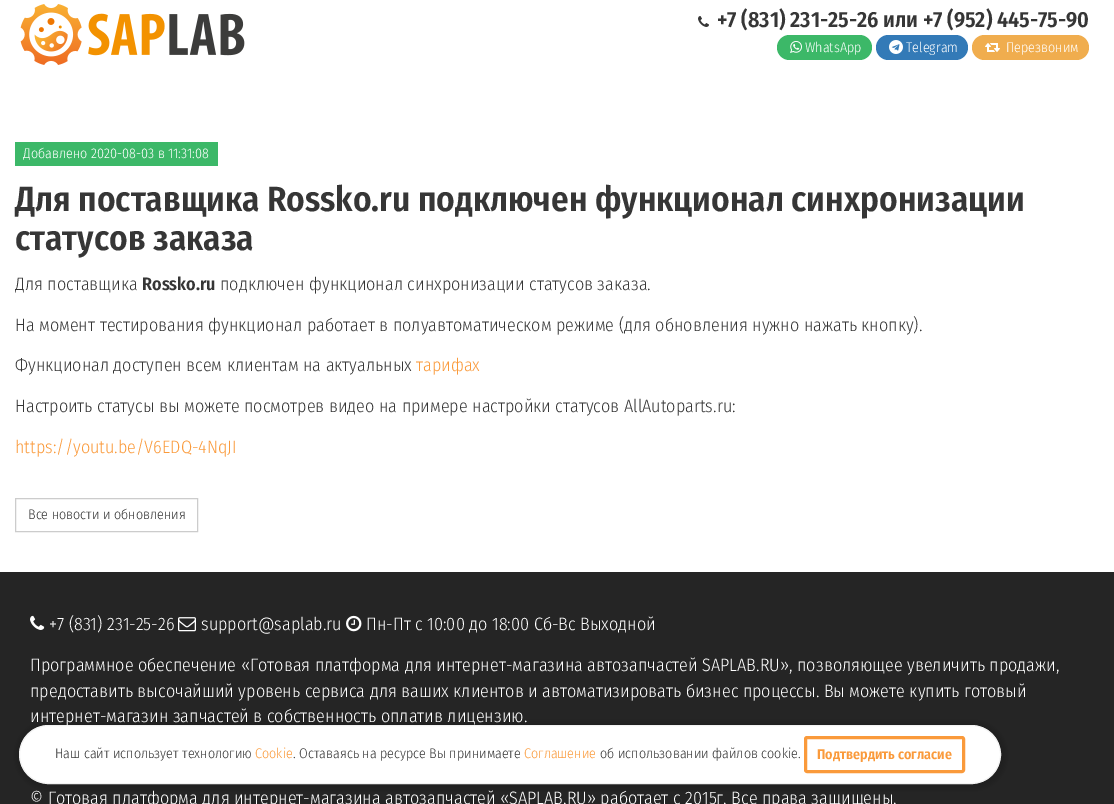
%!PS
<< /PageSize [1114 804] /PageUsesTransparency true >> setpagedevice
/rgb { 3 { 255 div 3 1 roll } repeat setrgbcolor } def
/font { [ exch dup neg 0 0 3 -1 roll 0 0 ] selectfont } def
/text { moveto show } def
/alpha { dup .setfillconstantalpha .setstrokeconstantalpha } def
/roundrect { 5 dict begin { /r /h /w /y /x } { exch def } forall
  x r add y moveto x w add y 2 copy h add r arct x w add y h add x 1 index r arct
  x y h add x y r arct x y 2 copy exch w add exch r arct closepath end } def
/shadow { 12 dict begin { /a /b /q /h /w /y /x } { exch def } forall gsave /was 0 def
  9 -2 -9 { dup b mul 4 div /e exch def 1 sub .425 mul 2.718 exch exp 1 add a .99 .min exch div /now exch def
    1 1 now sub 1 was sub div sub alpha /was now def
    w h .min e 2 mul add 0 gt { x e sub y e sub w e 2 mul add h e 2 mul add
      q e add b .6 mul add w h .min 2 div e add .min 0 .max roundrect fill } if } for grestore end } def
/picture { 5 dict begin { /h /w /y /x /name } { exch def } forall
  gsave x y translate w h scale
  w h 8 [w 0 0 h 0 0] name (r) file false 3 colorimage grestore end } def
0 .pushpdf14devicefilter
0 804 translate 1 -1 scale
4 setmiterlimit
255 255 255 rgb
0 0 1114 804 rectfill
(img_01.rgb) 20 4 225 61 picture
(img_02.rgb) 698 16 11 11 picture
60 184 104 rgb
777 35 95 25 12.5 roundrect fill
(img_03.rgb) 790 41 12 12 picture
51 122 183 rgb
876 35 92 25 12.5 roundrect fill
(img_04.rgb) 889 40 14 14 picture
240 173 78 rgb
972 35 117 25 12.5 roundrect fill
(img_05.rgb) 985 43 15 9 picture
60 184 104 rgb
15 142 203 24 rectfill
204 204 204 rgb
15.5 498.5 182 33 rectstroke
37 37 37 rgb
0 572 1114 232 rectfill
(img_06.rgb) 30 615 15 15 picture
(img_07.rgb) 178 617 18 15 picture
(img_08.rgb) 346 615 16 17 picture
0 0 0 rgb
15 721 992 69 34.5 2.5 0.16 shadow
255 255 255 rgb
19.5 725.5 981 58 29 roundrect gsave fill grestore
242 242 242 rgb
stroke
250 154 59 rgb
3 setlinewidth
805.5 737.5 158 34 1.5 roundrect stroke
/FiraSansCondensed-SemiBold 22 font
54 54 54 rgb
(+7 \(831\) 231-25-26 или +7 \(952\) 445-75-90) 717 27 text
/FiraSansCondensed-Light 14 font
255 255 255 rgb
(WhatsApp) 805 52 text
(Telegram) 906 52 text
(Перезвоним) 1006 52 text
(Добавлено 2020-08-03 в 11:31:08) 23 158 text
/FiraSansCondensed-SemiBold 35 font
54 54 54 rgb
(Для поставщикa Rossko.ru подключен функционал синхронизации) 15 211 text
(статусов заказа) 15 250 text
/FiraSansCondensed-Light 18 font
(Для поставщика) 15 290 text
/FiraSansCondensed-SemiBold 18 font
(Rossko.ru) 142 290 text
/FiraSansCondensed-Light 18 font
(подключен функционал синхронизации статусов заказа.) 220 290 text
(На момент тестирования функционал работает в полуавтоматическом режиме \(для обновления нужно нажать кнопку\).) 15 331 text
(Функционал доступен всем клиентам на актуальных) 15 371 text
250 154 59 rgb
(тарифах) 416 371 text
54 54 54 rgb
(Настроить статусы вы можете посмотрев видео на примере настройки статусов AllAutoparts.ru:) 15 412 text
250 154 59 rgb
(https://youtu.be/V6EDQ-4NqJI) 15 453 text
/FiraSansCondensed-Light 14 font
54 54 54 rgb
(Все новости и обновления) 28 519 text
/FiraSansCondensed-Light 18 font
255 255 255 rgb
(+7 \(831\) 231-25-26) 49 630 text
(support@saplab.ru) 201 630 text
(Пн-Пт с 10:00 до 18:00 Сб-Вс Выходной) 366 630 text
(Программное обеспечение «Готовая платформа для интернет-магазина автозапчастей SAPLAB.RU», позволяющее увеличить продажи,) 30 671 text
(предоставить высочайший уровень сервиса для ваших клиентов и автоматизировать бизнес процессы. Вы можете купить готовый) 30 697 text
(интернет-магазин запчастей в собственность оплатив лицензию.) 30 722 text
(© Готовая платформа для интернет-магазина автозапчастей «SAPLAB.RU» работает с 2015г. Все права защищены.) 30 804 text
/FiraSansCondensed-Light 14 font
54 54 54 rgb
(Наш сайт использует технологию) 55 758 text
250 154 59 rgb
(Cookie) 255 758 text
54 54 54 rgb
(. Оставаясь на ресурсе Вы принимаете) 293 758 text
250 154 59 rgb
(Соглашение) 524 758 text
54 54 54 rgb
(об использовании файлов cookie.) 600 758 text
/FiraSansCondensed-SemiBold 14 font
250 154 59 rgb
(Подтвердить согласие) 817 759 text
.poppdf14devicefilter showpage
